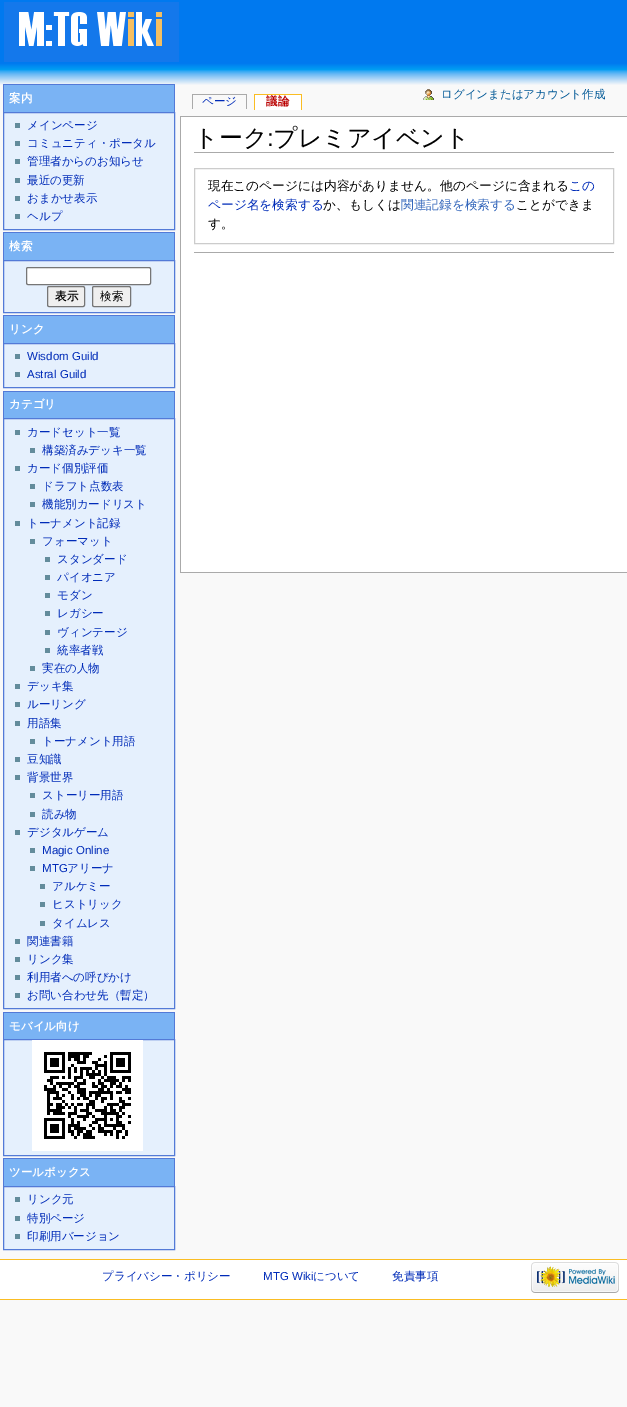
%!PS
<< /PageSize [627 1407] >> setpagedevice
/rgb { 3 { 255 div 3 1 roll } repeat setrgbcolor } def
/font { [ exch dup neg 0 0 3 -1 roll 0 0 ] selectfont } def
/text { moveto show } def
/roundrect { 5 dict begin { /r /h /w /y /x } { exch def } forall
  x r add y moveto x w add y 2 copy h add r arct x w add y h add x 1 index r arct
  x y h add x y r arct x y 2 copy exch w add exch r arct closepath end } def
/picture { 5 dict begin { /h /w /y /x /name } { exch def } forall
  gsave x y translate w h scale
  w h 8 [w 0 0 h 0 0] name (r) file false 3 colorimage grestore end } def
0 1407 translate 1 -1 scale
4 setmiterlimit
249 249 249 rgb
0 0 627 1407 rectfill
(img_01.rgb) 0 0 627 85 picture
(img_02.rgb) 4 2 175 60 picture
122 179 244 rgb
4 85 170 27 rectfill
83 122 215 rgb
3 84 172 1 rectfill
174 84 1 28 rectfill
3 84 1 28 rectfill
229 240 253 rgb
3.5 112.5 moveto 171 0 rlineto 0 117 rlineto -171 0 rlineto closepath gsave fill grestore
83 122 215 rgb
stroke
99 140 156 rgb
15 123 5 5 rectfill
15 141 5 5 rectfill
15 159 5 5 rectfill
15 178 5 5 rectfill
15 196 5 5 rectfill
15 214 5 5 rectfill
170 170 170 rgb
192 94 55 1 rectfill
246 94 1 15 rectfill
192 94 1 15 rectfill
255 255 255 rgb
255 95 46 15 rectfill
250 189 35 rgb
254 94 48 1 rectfill
301 94 1 16 rectfill
254 94 1 16 rectfill
(img_03.rgb) 423 89 11 11 picture
122 179 244 rgb
4 233 170 27 rectfill
83 122 215 rgb
3 232 172 1 rectfill
174 232 1 28 rectfill
3 232 1 28 rectfill
229 240 253 rgb
3.5 260.5 moveto 171 0 rlineto 0 52 rlineto -171 0 rlineto closepath gsave fill grestore
83 122 215 rgb
stroke
255 255 255 rgb
26.5 267.5 124 17 1.5 roundrect gsave fill grestore
118 118 118 rgb
stroke
239 239 239 rgb
47.5 286.5 37 20 1.5 roundrect gsave fill grestore
118 118 118 rgb
stroke
239 239 239 rgb
92.5 286.5 38 20 1.5 roundrect gsave fill grestore
118 118 118 rgb
stroke
122 179 244 rgb
4 316 170 27 rectfill
83 122 215 rgb
3 315 172 1 rectfill
174 315 1 28 rectfill
3 315 1 28 rectfill
229 240 253 rgb
3.5 343.5 moveto 171 0 rlineto 0 44 rlineto -171 0 rlineto closepath gsave fill grestore
83 122 215 rgb
stroke
99 140 156 rgb
15 354 5 5 rectfill
15 372 5 5 rectfill
122 179 244 rgb
4 392 170 26 rectfill
83 122 215 rgb
3 391 172 1 rectfill
174 391 1 27 rectfill
3 391 1 27 rectfill
229 240 253 rgb
3.5 418.5 moveto 171 0 rlineto 0 590 rlineto -171 0 rlineto closepath gsave fill grestore
83 122 215 rgb
stroke
99 140 156 rgb
15 430 5 5 rectfill
30 448 5 5 rectfill
15 466 5 5 rectfill
30 484 5 5 rectfill
30 502 5 5 rectfill
15 521 5 5 rectfill
30 539 5 5 rectfill
45 557 5 5 rectfill
45 575 5 5 rectfill
45 593 5 5 rectfill
45 611 5 5 rectfill
45 630 5 5 rectfill
45 648 5 5 rectfill
30 666 5 5 rectfill
15 684 5 5 rectfill
15 702 5 5 rectfill
15 721 5 5 rectfill
30 739 5 5 rectfill
15 757 5 5 rectfill
15 775 5 5 rectfill
30 793 5 5 rectfill
30 812 5 5 rectfill
15 830 5 5 rectfill
30 848 5 5 rectfill
30 866 5 5 rectfill
40 884 5 5 rectfill
40 902 5 5 rectfill
40 921 5 5 rectfill
15 939 5 5 rectfill
15 957 5 5 rectfill
15 975 5 5 rectfill
15 993 5 5 rectfill
122 179 244 rgb
4 1013 170 26 rectfill
83 122 215 rgb
3 1012 172 1 rectfill
174 1012 1 27 rectfill
3 1012 1 27 rectfill
229 240 253 rgb
3.5 1039.5 moveto 171 0 rlineto 0 116 rlineto -171 0 rlineto closepath gsave fill grestore
83 122 215 rgb
stroke
(img_04.rgb) 32 1040 111 111 picture
122 179 244 rgb
4 1159 170 27 rectfill
83 122 215 rgb
3 1158 172 1 rectfill
174 1158 1 28 rectfill
3 1158 1 28 rectfill
229 240 253 rgb
3.5 1186.5 moveto 171 0 rlineto 0 63 rlineto -171 0 rlineto closepath gsave fill grestore
83 122 215 rgb
stroke
99 140 156 rgb
15 1197 5 5 rectfill
15 1216 5 5 rectfill
15 1234 5 5 rectfill
255 255 255 rgb
181 117 446 455 rectfill
170 170 170 rgb
180 116 447 1 rectfill
180 572 447 1 rectfill
180 116 1 457 rectfill
194 152 420 1 rectfill
204 204 204 rgb
194.5 168.5 419 75 rectstroke
170 170 170 rgb
194 252 420 1 rectfill
255 255 255 rgb
0 1260 627 39 rectfill
250 189 35 rgb
0 1259 627 1 rectfill
0 1299 627 1 rectfill
(img_05.rgb) 531 1262 88 31 picture
/WenQuanYiZenHei-Bold 11.5 font
255 255 255 rgb
(案内) 9 102 text
/WenQuanYiZenHei-Medium 11.5 font
0 43 184 rgb
(メインページ) 27 129 text
(コミュニティ・ポータル) 27 147 text
(管理者からのお知らせ) 27 165 text
(最近の更新) 27 184 text
(おまかせ表示) 27 202 text
(ヘルプ) 27 220 text
(ページ) 202 105 text
/WenQuanYiZenHei-Bold 11.5 font
186 0 0 rgb
(議論) 266 105 text
/WenQuanYiZenHei-Medium 11.5 font
0 88 150 rgb
(ログインまたはアカウント作成) 441 98 text
/WenQuanYiZenHei-Bold 11.5 font
255 255 255 rgb
(検索) 9 250 text
0 0 0 rgb
(表示) 55 300 text
/WenQuanYiZenHei-Medium 11.5 font
(検索) 100 300 text
/WenQuanYiZenHei-Bold 11.5 font
255 255 255 rgb
(リンク) 9 333 text
/LiberationSans-Regular 11.5 font
0 43 184 rgb
(Wisdom Guild) 27 360 text
(Astral Guild) 27 378 text
/WenQuanYiZenHei-Bold 11.5 font
255 255 255 rgb
(カテゴリ) 9 408 text
/WenQuanYiZenHei-Medium 11.5 font
0 43 184 rgb
(カードセット一覧) 27 436 text
(構築済みデッキ一覧) 42 454 text
(カード個別評価) 27 472 text
(ドラフト点数表) 42 490 text
(機能別カードリスト) 42 508 text
(トーナメント記録) 27 527 text
(フォーマット) 42 545 text
(スタンダード) 57 563 text
(パイオニア) 57 581 text
(モダン) 57 599 text
(レガシー) 57 617 text
(ヴィンテージ) 57 636 text
(統率者戦) 57 654 text
(実在の人物) 42 672 text
(デッキ集) 27 690 text
(ルーリング) 27 708 text
(用語集) 27 727 text
(トーナメント用語) 42 745 text
(豆知識) 27 763 text
(背景世界) 27 781 text
(ストーリー用語) 42 799 text
(読み物) 42 818 text
(デジタルゲーム) 27 836 text
/LiberationSans-Regular 11.5 font
(Magic Online) 42 854 text
(MTG) 42 872 text
/WenQuanYiZenHei-Medium 11.5 font
(アリーナ) 67 872 text
(アルケミー) 52 890 text
(ヒストリック) 52 908 text
(タイムレス) 52 927 text
(関連書籍) 27 945 text
(リンク集) 27 963 text
(利用者への呼びかけ) 27 981 text
(お問い合わせ先（暫定）) 27 999 text
/WenQuanYiZenHei-Bold 11.5 font
255 255 255 rgb
(モバイル向け) 9 1030 text
(ツールボックス) 9 1176 text
/WenQuanYiZenHei-Medium 11.5 font
0 43 184 rgb
(リンク元) 27 1203 text
(特別ページ) 27 1222 text
(印刷用バージョン) 27 1240 text
/WenQuanYiZenHei-Medium 24 font
0 0 0 rgb
(トーク) 194 146 text
/LiberationSans-Regular 24 font
(:) 267 146 text
/WenQuanYiZenHei-Medium 24 font
(プレミアイベント) 273 146 text
/WenQuanYiZenHei-Medium 12.7 font
(現在このページには内容がありません。他のページに含まれる) 208 190 text
0 43 184 rgb
(この) 569 190 text
(ページ名を検索する) 208 209 text
0 0 0 rgb
(か、もしくは) 323 209 text
51 102 187 rgb
(関連記録を検索する) 401 209 text
0 0 0 rgb
(ことができま) 516 209 text
(す。) 208 228 text
/WenQuanYiZenHei-Medium 11.5 font
0 43 184 rgb
(プライバシー・ポリシー) 102 1280 text
/LiberationSans-Regular 11.5 font
(MTG Wiki) 263 1280 text
/WenQuanYiZenHei-Medium 11.5 font
(について) 313 1280 text
(免責事項) 392 1280 text
showpage
